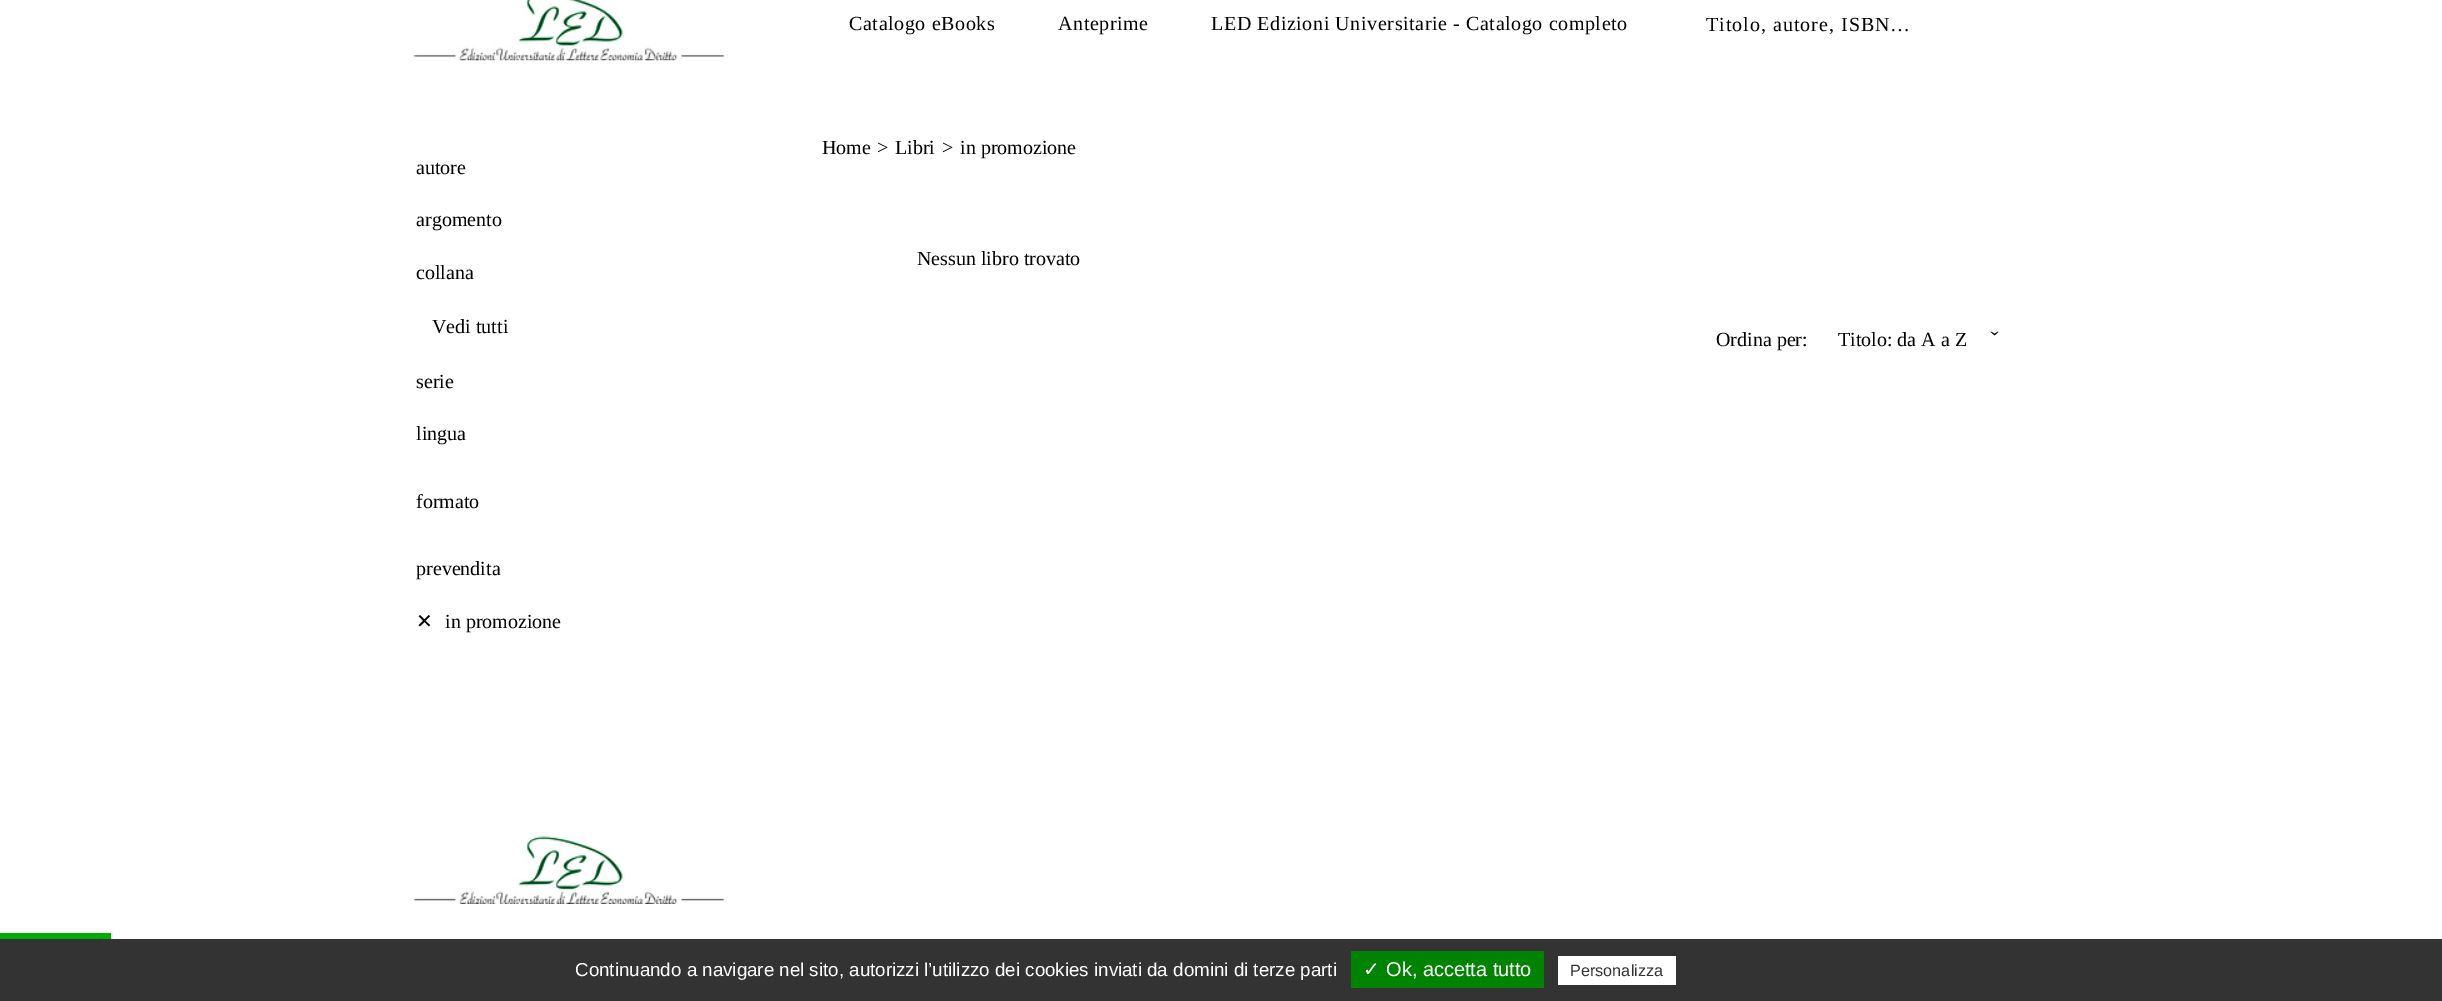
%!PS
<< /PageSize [2442 1001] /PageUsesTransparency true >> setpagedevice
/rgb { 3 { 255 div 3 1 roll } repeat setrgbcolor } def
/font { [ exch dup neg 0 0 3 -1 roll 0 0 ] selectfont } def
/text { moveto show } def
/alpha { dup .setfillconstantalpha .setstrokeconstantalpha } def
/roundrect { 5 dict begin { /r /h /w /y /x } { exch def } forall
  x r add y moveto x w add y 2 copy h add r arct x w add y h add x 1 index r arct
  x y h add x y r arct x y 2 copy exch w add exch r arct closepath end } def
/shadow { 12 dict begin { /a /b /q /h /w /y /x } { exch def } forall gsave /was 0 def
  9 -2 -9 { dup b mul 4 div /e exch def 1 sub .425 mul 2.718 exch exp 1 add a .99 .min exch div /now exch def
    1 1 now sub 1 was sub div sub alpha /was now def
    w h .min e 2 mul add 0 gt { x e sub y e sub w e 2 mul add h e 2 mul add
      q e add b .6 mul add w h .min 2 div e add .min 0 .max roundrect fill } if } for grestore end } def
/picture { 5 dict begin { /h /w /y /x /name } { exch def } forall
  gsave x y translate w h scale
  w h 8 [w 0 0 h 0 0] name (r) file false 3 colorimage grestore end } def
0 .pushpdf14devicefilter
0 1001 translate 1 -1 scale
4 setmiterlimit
255 255 255 rgb
0 0 2442 1001 rectfill
(img_01.rgb) 413 0 312 61 picture
(img_02.rgb) 413 835 312 69 picture
85 85 85 rgb
0 934 111 6 0 1 1 shadow
255 255 255 rgb
0 933 111 6 0 1 1 shadow
0 170 0 rgb
0 933 111 6 rectfill
51 51 51 rgb
0 939 2442 62 rectfill
0 131 0 rgb
1351 951 193 37 rectfill
255 255 255 rgb
1558 956 118 29 rectfill
/LiberationSerif-Regular 20 font
0 0 0 rgb
849 30 moveto 0.6 0 (Catalogo eBooks) ashow
1058 30 moveto 0.6 0 (Anteprime) ashow
1211 30 moveto 0.6 0 (LED Edizioni Universitarie - Catalogo completo) ashow
1706 31 moveto 1 0 (Titolo, autore, ISBN…) ashow
(Home) 822 154 text
(>) 877 154 text
(Libri) 895 154 text
(>) 942 154 text
(in promozione) 960 154 text
(autore) 416 174 text
(argomento) 416 226 text
(collana) 416 279 text
(Vedi tutti) 432 333 text
(serie) 416 388 text
(lingua) 416 440 text
(formato) 416 508 text
(prevendita) 416 575 text
/DejaVuSans-Regular 20 font
(✕) 416 628 text
/LiberationSerif-Regular 20 font
(in promozione) 445 628 text
(Nessun libro trovato) 917 265 text
(Ordina per:) 1716 346 text
(Titolo: da A a Z) 1838 346 text
gsave 1990 330 translate 90 rotate 0 0 moveto (›) show grestore
/LiberationSans-Regular 18.75 font
255 255 255 rgb
(Continuando a navigare nel sito, autorizzi l’utilizzo dei cookies inviati da domini di terze parti) 575 976 text
/DejaVuSans-Regular 20 font
(✓) 1363 976 text
/LiberationSans-Regular 20 font
(Ok, accetta tutto) 1386 976 text
/LiberationSans-Regular 16.25 font
51 51 51 rgb
(Personalizza) 1570 976 text
.poppdf14devicefilter showpage
